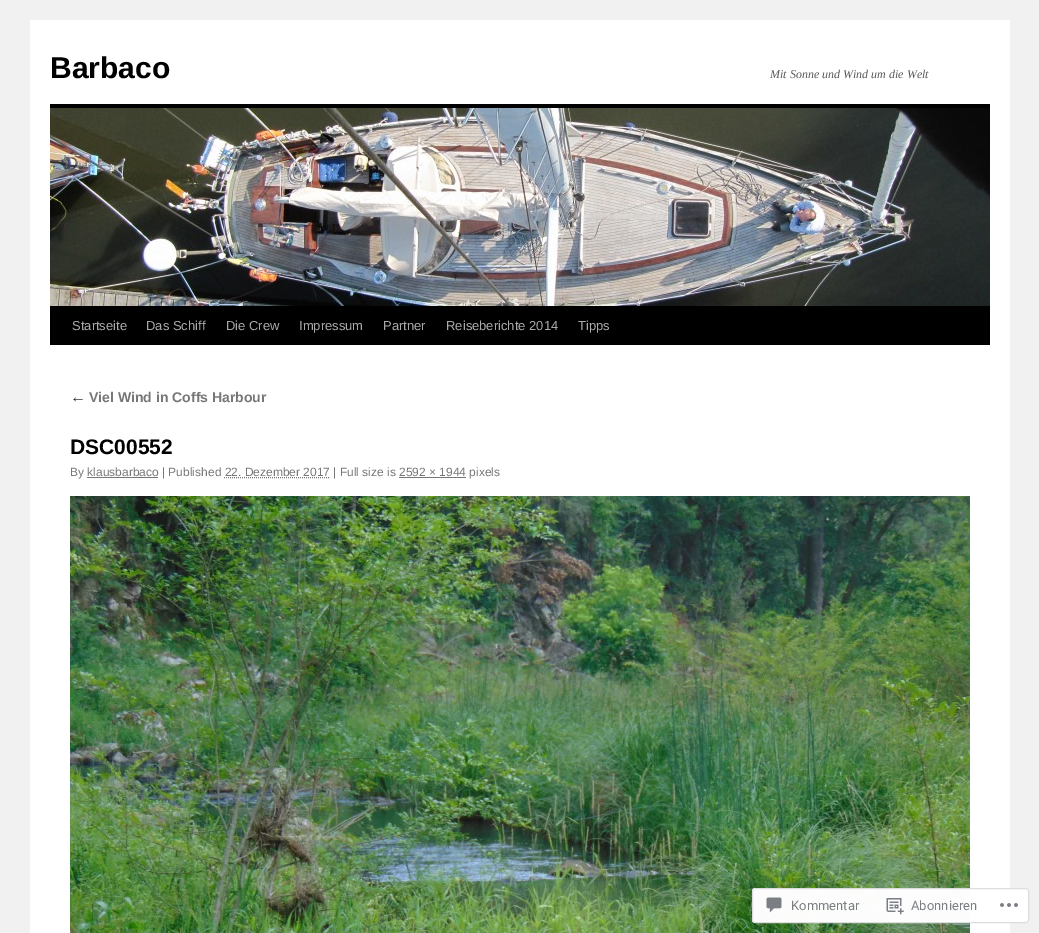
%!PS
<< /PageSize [1039 933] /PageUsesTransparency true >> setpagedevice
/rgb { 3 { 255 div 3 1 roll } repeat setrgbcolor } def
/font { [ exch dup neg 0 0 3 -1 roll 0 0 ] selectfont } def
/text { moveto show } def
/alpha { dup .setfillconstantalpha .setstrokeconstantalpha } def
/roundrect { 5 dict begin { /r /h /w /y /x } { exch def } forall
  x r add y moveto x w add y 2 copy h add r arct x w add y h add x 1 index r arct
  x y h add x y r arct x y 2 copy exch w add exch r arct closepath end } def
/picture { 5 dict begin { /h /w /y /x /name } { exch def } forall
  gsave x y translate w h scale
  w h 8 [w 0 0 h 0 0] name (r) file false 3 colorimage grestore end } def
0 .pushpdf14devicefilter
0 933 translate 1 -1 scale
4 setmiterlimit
241 241 241 rgb
0 0 1039 933 rectfill
255 255 255 rgb
30 20 980 913 rectfill
0 0 0 rgb
50 104 940 4 rectfill
50 306 940 39 rectfill
(img_01.rgb) 50 108 940 198 picture
119 119 119 rgb
87 477 71 1 rectfill
[1 1] 0 setdash
224 477.5 moveto 105.5 0 rlineto stroke
399 477 67 1 rectfill
(img_02.rgb) 70 496 900 437 picture
0.98 alpha
255 255 255 rgb
752 888 277 35 3 roundrect fill
220 220 222 rgb
[] 0 setdash
752.5 888.5 276 34 2.5 roundrect stroke
1 alpha
(img_03.rgb) 766 897 16 16 picture
(img_04.rgb) 886 898 18 17 picture
(img_05.rgb) 1000 903 18 4 picture
/LiberationSans-Bold 30 font
0 0 0 rgb
(Barbaco) 50 78 text
/LiberationSerif-Italic 12 font
89 89 89 rgb
(Mit Sonne und Wind um die Welt) 770 78 text
/LiberationSans-Regular 13 font
170 170 170 rgb
(Startseite) 72 330 text
(Das Schiff) 146 330 text
(Die Crew) 226 330 text
(Impressum) 299 330 text
(Partner) 383 330 text
(Reiseberichte 2014) 446 330 text
(Tipps) 578 330 text
/LiberationSerif-Italic 16 font
51 51 51 rgb
(←) 70 402 text
/LiberationSans-Bold 14 font
119 119 119 rgb
(Viel Wind in Coffs Harbour) 89 402 text
/LiberationSans-Bold 21 font
0 0 0 rgb
(DSC00552) 70 454 text
/LiberationSans-Regular 12 font
119 119 119 rgb
(By klausbarbaco | Published 22. Dezember 2017 | Full size is 2592 × 1944 pixels) 70 476 text
/Roboto-Regular 13 font
123 127 132 rgb
(Kommentar) 791 910 text
(Abonnieren) 911 910 text
.poppdf14devicefilter showpage
